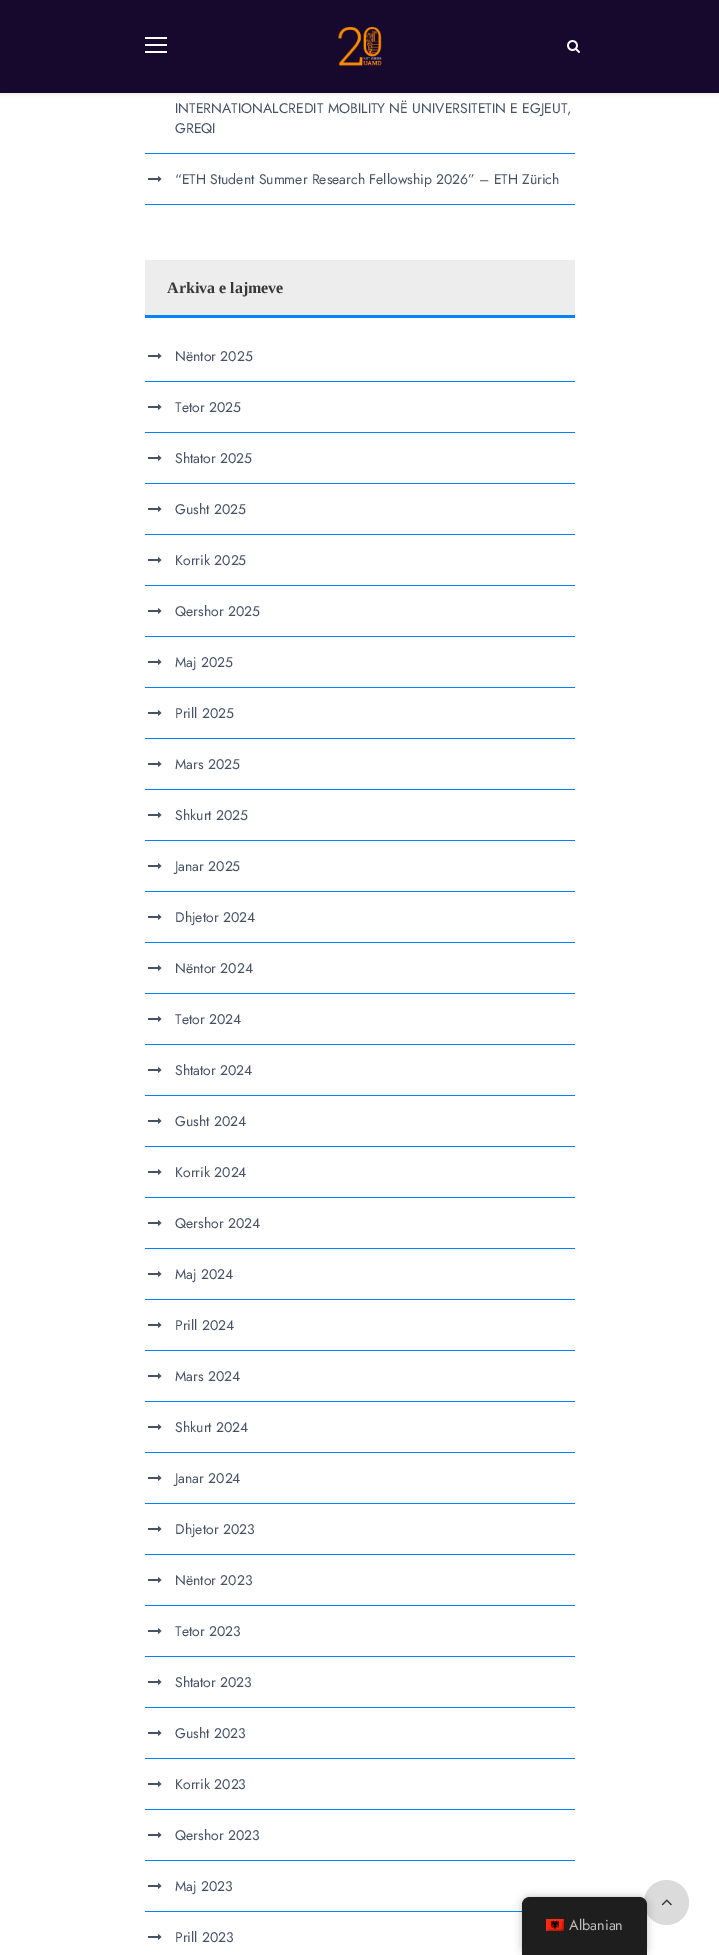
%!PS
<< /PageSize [719 1955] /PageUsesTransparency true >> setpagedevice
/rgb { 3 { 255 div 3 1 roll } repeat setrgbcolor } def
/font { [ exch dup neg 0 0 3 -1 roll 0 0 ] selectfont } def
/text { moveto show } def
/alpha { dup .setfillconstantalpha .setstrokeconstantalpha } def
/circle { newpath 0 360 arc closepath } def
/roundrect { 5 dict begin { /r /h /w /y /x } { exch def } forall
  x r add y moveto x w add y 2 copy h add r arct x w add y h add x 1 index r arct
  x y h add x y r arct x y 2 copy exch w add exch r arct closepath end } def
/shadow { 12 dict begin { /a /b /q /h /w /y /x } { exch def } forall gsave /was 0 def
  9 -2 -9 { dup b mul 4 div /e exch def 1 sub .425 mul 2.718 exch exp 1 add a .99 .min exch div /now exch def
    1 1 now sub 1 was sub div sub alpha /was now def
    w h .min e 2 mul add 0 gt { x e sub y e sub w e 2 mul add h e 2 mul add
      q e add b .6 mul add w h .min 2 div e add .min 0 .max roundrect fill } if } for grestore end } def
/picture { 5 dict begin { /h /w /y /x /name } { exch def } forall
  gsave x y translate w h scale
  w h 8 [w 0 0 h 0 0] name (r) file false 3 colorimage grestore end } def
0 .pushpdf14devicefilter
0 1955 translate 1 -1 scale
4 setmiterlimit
255 255 255 rgb
0 0 719 1955 rectfill
0 0 0 rgb
0 1 719 93 0 2 0.1 shadow
23 8 45 rgb
0 0 719 93 rectfill
255 255 255 rgb
145 37 22 2 rectfill
145 44 22 2 rectfill
145 51 22 2 rectfill
(img_01.rgb) 338 27 44 39 picture
(img_02.rgb) 567 40 13 13 picture
0 130 250 rgb
145 153 430 1 rectfill
145 204 430 1 rectfill
(img_03.rgb) 148 176 14 6 picture
237 237 237 rgb
145 260 430 55 rectfill
0 130 250 rgb
145 315 430 3 rectfill
145 381 430 1 rectfill
(img_03.rgb) 148 353 14 6 picture
145 432 430 1 rectfill
(img_03.rgb) 148 404 14 6 picture
145 483 430 1 rectfill
(img_03.rgb) 148 455 14 6 picture
145 534 430 1 rectfill
(img_03.rgb) 148 506 14 6 picture
145 585 430 1 rectfill
(img_03.rgb) 148 557 14 6 picture
145 636 430 1 rectfill
(img_03.rgb) 148 608 14 6 picture
145 687 430 1 rectfill
(img_03.rgb) 148 659 14 6 picture
145 738 430 1 rectfill
(img_03.rgb) 148 710 14 6 picture
145 789 430 1 rectfill
(img_03.rgb) 148 761 14 6 picture
145 840 430 1 rectfill
(img_03.rgb) 148 812 14 6 picture
145 891 430 1 rectfill
(img_03.rgb) 148 863 14 6 picture
145 942 430 1 rectfill
(img_03.rgb) 148 914 14 6 picture
145 993 430 1 rectfill
(img_03.rgb) 148 965 14 6 picture
145 1044 430 1 rectfill
(img_03.rgb) 148 1016 14 6 picture
145 1095 430 1 rectfill
(img_03.rgb) 148 1067 14 6 picture
145 1146 430 1 rectfill
(img_03.rgb) 148 1118 14 6 picture
145 1197 430 1 rectfill
(img_03.rgb) 148 1169 14 6 picture
145 1248 430 1 rectfill
(img_03.rgb) 148 1220 14 6 picture
145 1299 430 1 rectfill
(img_03.rgb) 148 1271 14 6 picture
145 1350 430 1 rectfill
(img_03.rgb) 148 1322 14 6 picture
145 1401 430 1 rectfill
(img_03.rgb) 148 1373 14 6 picture
145 1452 430 1 rectfill
(img_03.rgb) 148 1424 14 6 picture
145 1503 430 1 rectfill
(img_03.rgb) 148 1475 14 6 picture
145 1554 430 1 rectfill
(img_03.rgb) 148 1526 14 6 picture
145 1605 430 1 rectfill
(img_03.rgb) 148 1577 14 6 picture
145 1656 430 1 rectfill
(img_03.rgb) 148 1628 14 6 picture
145 1707 430 1 rectfill
(img_03.rgb) 148 1679 14 6 picture
145 1758 430 1 rectfill
(img_03.rgb) 148 1730 14 6 picture
145 1809 430 1 rectfill
(img_03.rgb) 148 1781 14 6 picture
145 1860 430 1 rectfill
(img_03.rgb) 148 1832 14 6 picture
145 1911 377 1 rectfill
(img_03.rgb) 148 1883 14 6 picture
(img_03.rgb) 148 1934 14 6 picture
219 219 219 rgb
666.5 1902.5 22.5 circle fill
0 0 0 rgb
522 1897 125 58 8 4 0.25 shadow
30 30 30 rgb
530 1897 moveto 109 0 rlineto 4.5 0 8 3.5 8 8 rcurveto 0 50 rlineto -125 0 rlineto 0 -50 rlineto 0 -4.5 3.5 -8 8 -8 rcurveto closepath fill
(img_04.rgb) 546 1919 18 12 picture
(img_05.rgb) 661 1899 11 7 picture
/Jost-Regular 14 font
71 82 103 rgb
(INTERNATIONALCREDIT MOBILITY NË UNIVERSITETIN E EGJEUT,) 175 113 text
(GREQI) 175 133 text
(“ETH Student Summer Research Fellowship 2026” – ETH Zürich) 175 184 text
/LiberationSerif-Bold 16 font
56 56 56 rgb
(Arkiva e lajmeve) 167 293 text
/Jost-Regular 14 font
71 82 103 rgb
(Nëntor 2025) 175 361 text
(Tetor 2025) 175 412 text
(Shtator 2025) 175 463 text
(Gusht 2025) 175 514 text
(Korrik 2025) 175 565 text
(Qershor 2025) 175 616 text
(Maj 2025) 175 667 text
(Prill 2025) 175 718 text
(Mars 2025) 175 769 text
(Shkurt 2025) 175 820 text
(Janar 2025) 175 871 text
(Dhjetor 2024) 175 922 text
(Nëntor 2024) 175 973 text
(Tetor 2024) 175 1024 text
(Shtator 2024) 175 1075 text
(Gusht 2024) 175 1126 text
(Korrik 2024) 175 1177 text
(Qershor 2024) 175 1228 text
(Maj 2024) 175 1279 text
(Prill 2024) 175 1330 text
(Mars 2024) 175 1381 text
(Shkurt 2024) 175 1432 text
(Janar 2024) 175 1483 text
(Dhjetor 2023) 175 1534 text
(Nëntor 2023) 175 1585 text
(Tetor 2023) 175 1636 text
(Shtator 2023) 175 1687 text
(Gusht 2023) 175 1738 text
(Korrik 2023) 175 1789 text
(Qershor 2023) 175 1840 text
(Maj 2023) 175 1891 text
(Prill 2023) 175 1942 text
/Jost-Regular 14.5 font
189 189 189 rgb
(Albanian) 569 1930 text
.poppdf14devicefilter showpage
